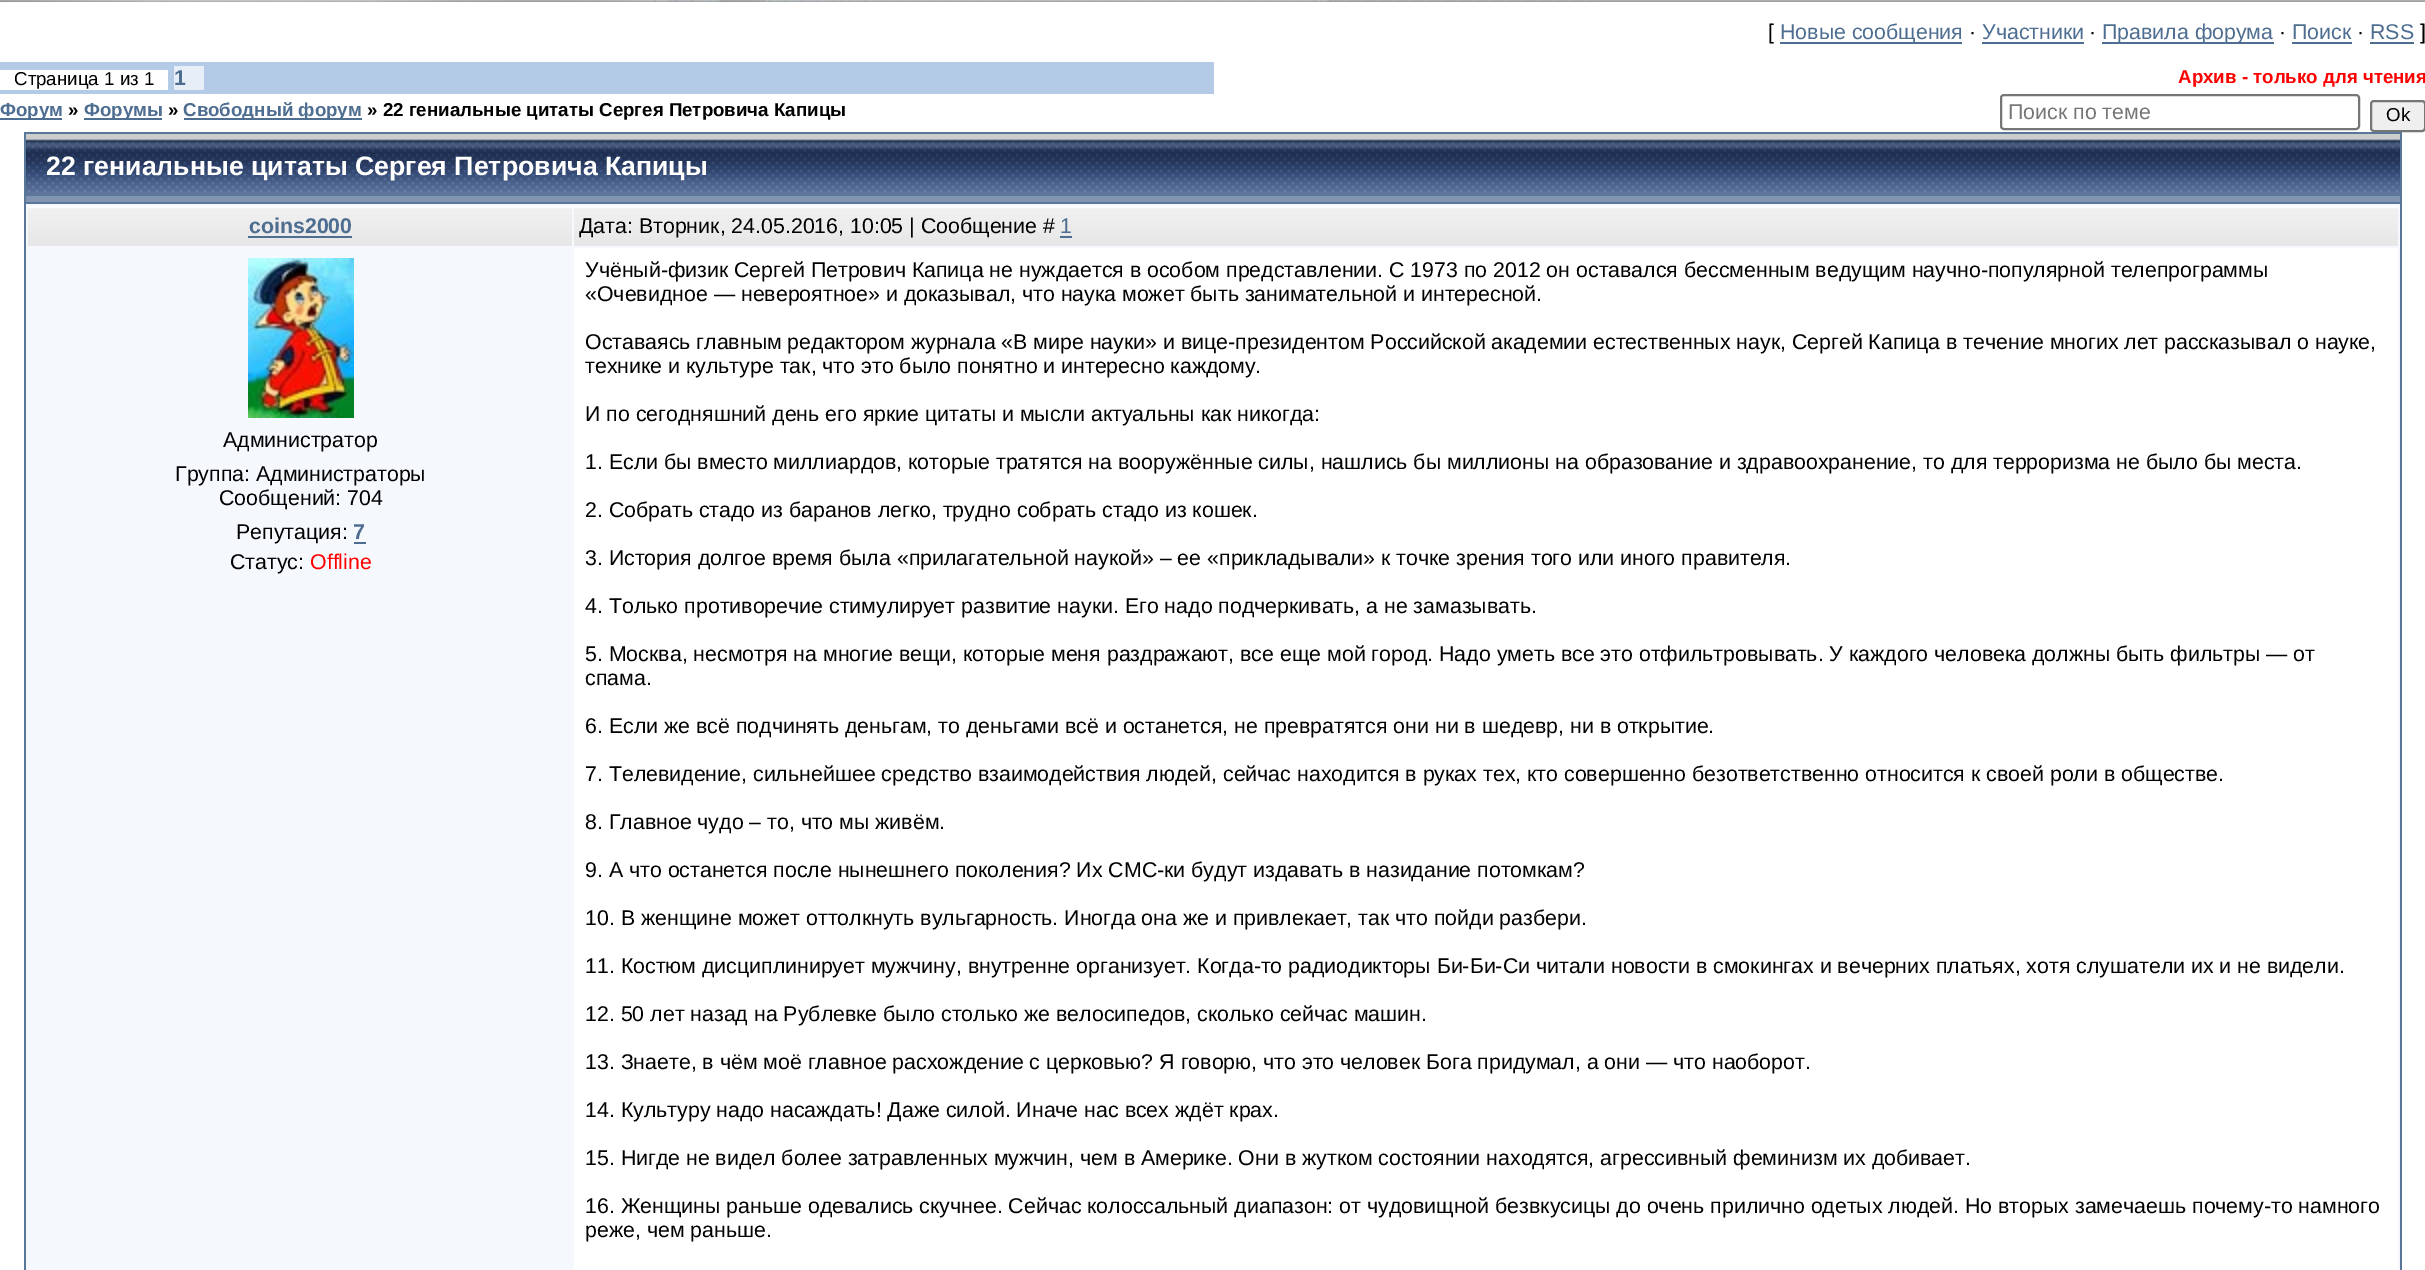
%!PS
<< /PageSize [2425 1270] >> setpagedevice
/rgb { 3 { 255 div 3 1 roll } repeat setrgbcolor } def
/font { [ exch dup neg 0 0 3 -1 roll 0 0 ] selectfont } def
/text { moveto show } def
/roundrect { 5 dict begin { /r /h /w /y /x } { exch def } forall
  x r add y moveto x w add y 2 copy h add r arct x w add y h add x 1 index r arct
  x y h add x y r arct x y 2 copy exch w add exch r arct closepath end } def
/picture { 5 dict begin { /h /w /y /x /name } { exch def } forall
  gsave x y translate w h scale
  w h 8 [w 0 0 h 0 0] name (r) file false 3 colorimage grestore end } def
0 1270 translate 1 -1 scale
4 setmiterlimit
255 255 255 rgb
0 0 2425 1270 rectfill
161 161 161 rgb
760 1 1665 1 rectfill
175 175 175 rgb
760 0 1665 1 rectfill
(img_01.rgb) 0 0 760 2 picture
(img_02.rgb) 766 0 834 2 picture
77 109 145 rgb
1780 42 182 2 rectfill
1982 42 102 2 rectfill
2102 42 172 2 rectfill
2292 42 60 2 rectfill
2370 42 44 2 rectfill
180 203 231 rgb
0 62 1214 32 rectfill
255 255 255 rgb
0 70 168 20 rectfill
231 238 248 rgb
174 66 30 24 rectfill
77 109 145 rgb
0 118 62 2 rectfill
84 118 78 2 rectfill
184 118 178 2 rectfill
118 118 118 rgb
2 setlinewidth
2001 95 358 34 3 roundrect stroke
239 239 239 rgb
2371 101 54 30 3 roundrect gsave fill grestore
118 118 118 rgb
stroke
89 119 152 rgb
24 132 2378 1138 rectfill
(img_03.rgb) 26 134 2374 60 picture
131 148 178 rgb
26 196 2374 6 rectfill
245 249 253 rgb
26 204 2374 1066 rectfill
(img_04.rgb) 28 206 544 40 picture
77 109 145 rgb
248 236 104 2 rectfill
(img_05.rgb) 574 206 1824 40 picture
1060 236 12 2 rectfill
(img_06.rgb) 248 258 106 160 picture
354 542 12 2 rectfill
255 255 255 rgb
574 248 1824 1022 rectfill
/LiberationSans-Regular 21.33 font
0 0 0 rgb
([) 1768 39 text
77 109 145 rgb
(Новые сообщения) 1780 39 text
0 0 0 rgb
(·) 1969 39 text
77 109 145 rgb
(Участники) 1982 39 text
0 0 0 rgb
(·) 2089 39 text
77 109 145 rgb
(Правила форума) 2102 39 text
0 0 0 rgb
(·) 2279 39 text
77 109 145 rgb
(Поиск) 2292 39 text
0 0 0 rgb
(·) 2357 39 text
77 109 145 rgb
(RSS) 2370 39 text
0 0 0 rgb
(]) 2420 39 text
/LiberationSans-Regular 18.7 font
(Страница 1 из 1) 14 85 text
/LiberationSans-Bold 21.33 font
77 109 145 rgb
(1) 174 85 text
/LiberationSans-Bold 18.7 font
255 0 0 rgb
(Архив - только для чтения) 2178 83 text
77 109 145 rgb
(Форум) 0 116 text
0 0 0 rgb
(») 68 116 text
77 109 145 rgb
(Форумы) 84 116 text
0 0 0 rgb
(») 168 116 text
77 109 145 rgb
(Свободный форум) 183 116 text
0 0 0 rgb
(» 22 гениальные цитаты Сергея Петровича Капицы) 367 116 text
/LiberationSans-Regular 21.33 font
117 117 117 rgb
(Поиск по теме) 2008 119 text
/LiberationSans-Regular 18.7 font
0 0 0 rgb
(Ok) 2386 121 text
/LiberationSans-Bold 26.7 font
255 255 255 rgb
(22 гениальные цитаты Сергея Петровича Капицы) 46 175 text
/LiberationSans-Bold 21.33 font
77 109 145 rgb
(coins2000) 249 233 text
/LiberationSans-Regular 21.33 font
0 0 0 rgb
(Дата: Вторник, 24.05.2016, 10:05 | Сообщение #) 579 233 text
77 109 145 rgb
(1) 1060 233 text
0 0 0 rgb
(Администратор) 223 447 text
(Группа: Администраторы) 175 481 text
(Сообщений: 704) 219 505 text
(Репутация:) 236 539 text
/LiberationSans-Bold 21.33 font
77 109 145 rgb
(7) 353 539 text
/LiberationSans-Regular 21.33 font
0 0 0 rgb
(Статус:) 230 569 text
255 0 0 rgb
(Offline) 310 569 text
0 0 0 rgb
(Учёный-физик Сергей Петрович Капица не нуждается в особом представлении. С 1973 по 2012 он оставался бессменным ведущим научно-популярной телепрограммы) 585 277 text
(«Очевидное — невероятное» и доказывал, что наука может быть занимательной и интересной.) 585 301 text
(Оставаясь главным редактором журнала «В мире науки» и вице-президентом Российской академии естественных наук, Сергей Капица в течение многих лет рассказывал о науке,) 585 349 text
(технике и культуре так, что это было понятно и интересно каждому.) 585 373 text
(И по сегодняшний день его яркие цитаты и мысли актуальны как никогда:) 585 421 text
(1. Если бы вместо миллиардов, которые тратятся на вооружённые силы, нашлись бы миллионы на образование и здравоохранение, то для терроризма не было бы места.) 585 469 text
(2. Собрать стадо из баранов легко, трудно собрать стадо из кошек.) 585 517 text
(3. История долгое время была «прилагательной наукой» – ее «прикладывали» к точке зрения того или иного правителя.) 585 565 text
(4. Только противоречие стимулирует развитие науки. Его надо подчеркивать, а не замазывать.) 585 613 text
(5. Москва, несмотря на многие вещи, которые меня раздражают, все еще мой город. Надо уметь все это отфильтровывать. У каждого человека должны быть фильтры — от) 585 661 text
(спама.) 585 685 text
(6. Если же всё подчинять деньгам, то деньгами всё и останется, не превратятся они ни в шедевр, ни в открытие.) 585 733 text
(7. Телевидение, сильнейшее средство взаимодействия людей, сейчас находится в руках тех, кто совершенно безответственно относится к своей роли в обществе.) 585 781 text
(8. Главное чудо – то, что мы живём.) 585 829 text
(9. А что останется после нынешнего поколения? Их СМС-ки будут издавать в назидание потомкам?) 585 877 text
(10. В женщине может оттолкнуть вульгарность. Иногда она же и привлекает, так что пойди разбери.) 585 925 text
(11. Костюм дисциплинирует мужчину, внутренне организует. Когда-то радиодикторы Би-Би-Си читали новости в смокингах и вечерних платьях, хотя слушатели их и не видели.) 585 973 text
(12. 50 лет назад на Рублевке было столько же велосипедов, сколько сейчас машин.) 585 1021 text
(13. Знаете, в чём моё главное расхождение с церковью? Я говорю, что это человек Бога придумал, а они — что наоборот.) 585 1069 text
(14. Культуру надо насаждать! Даже силой. Иначе нас всех ждёт крах.) 585 1117 text
(15. Нигде не видел более затравленных мужчин, чем в Америке. Они в жутком состоянии находятся, агрессивный феминизм их добивает.) 585 1165 text
(16. Женщины раньше одевались скучнее. Сейчас колоссальный диапазон: от чудовищной безвкусицы до очень прилично одетых людей. Но вторых замечаешь почему-то намного) 585 1213 text
(реже, чем раньше.) 585 1237 text
showpage
